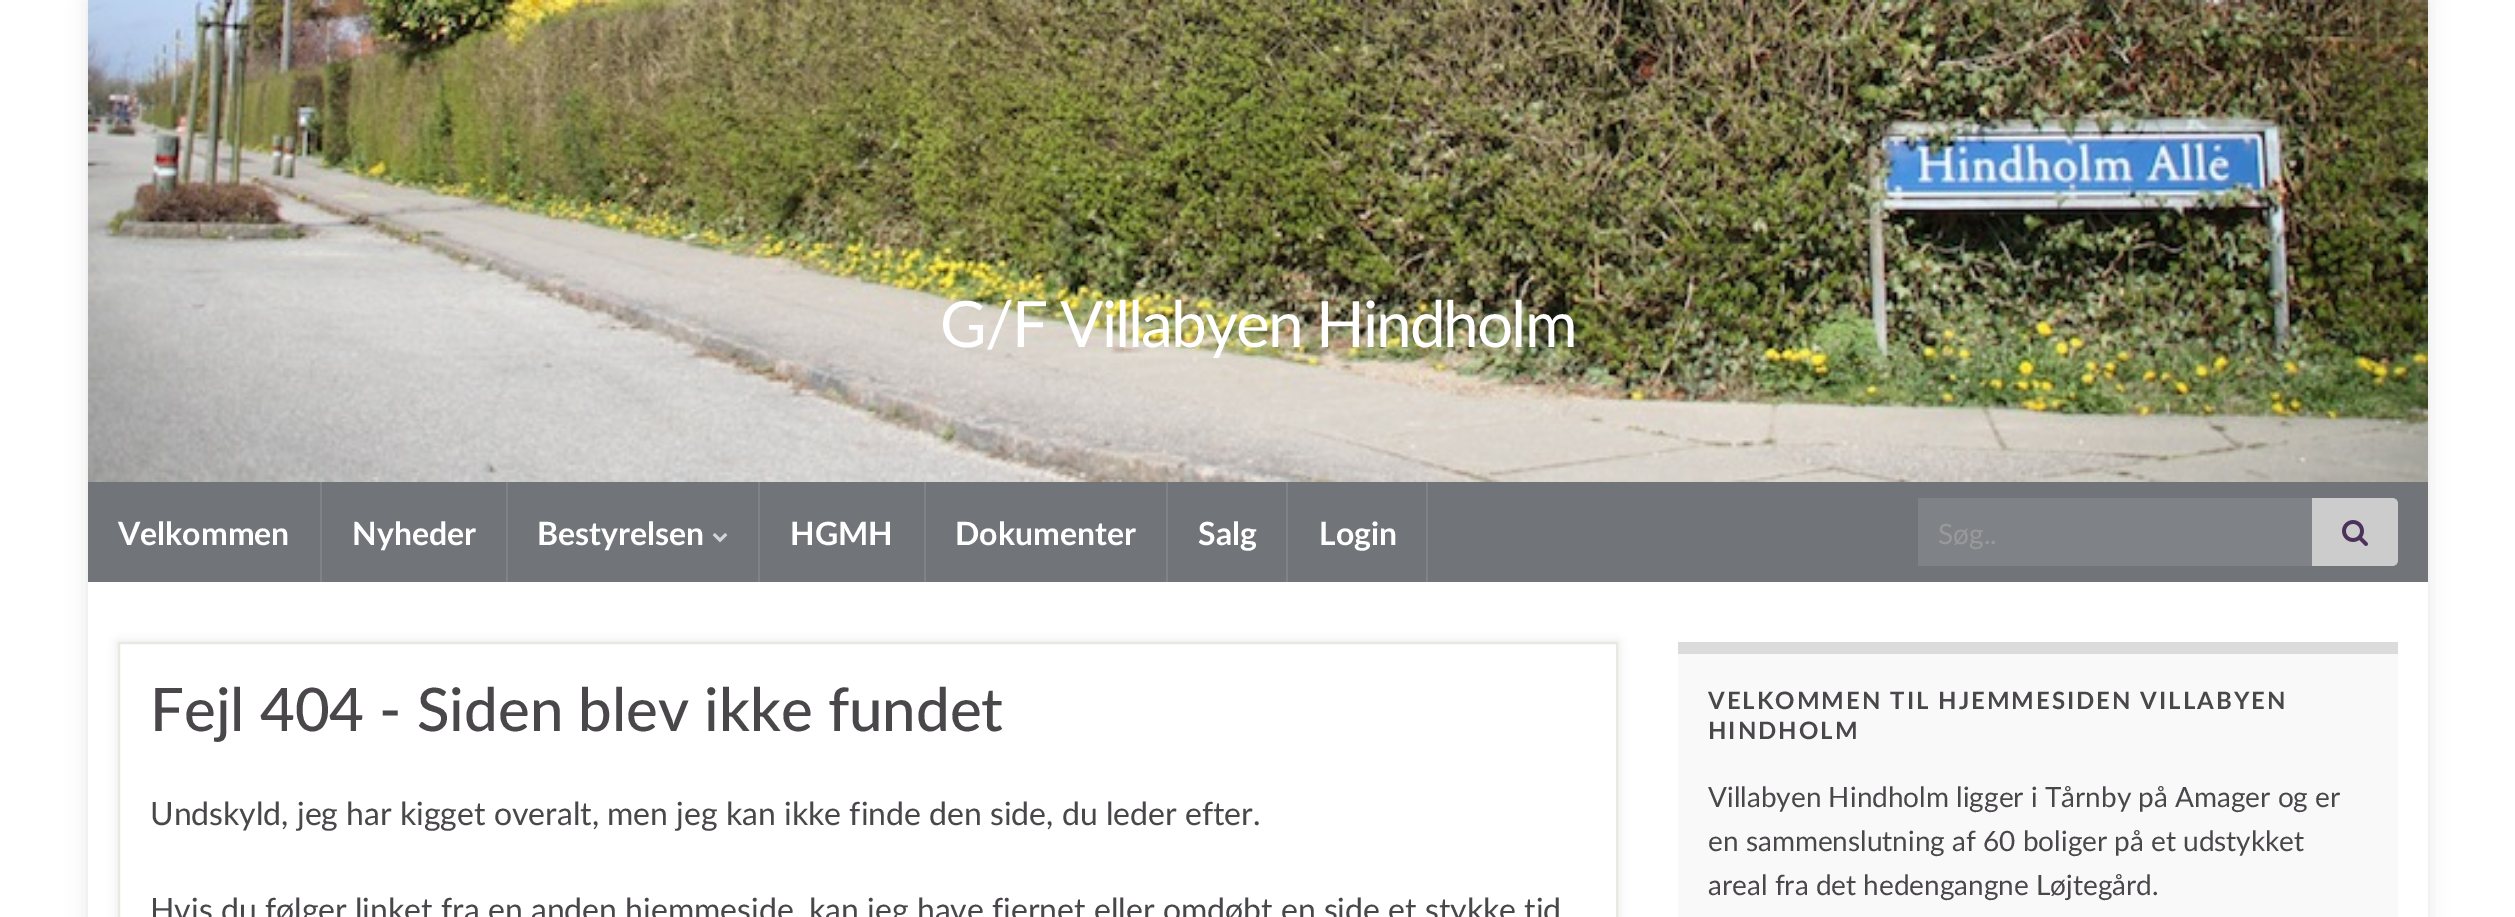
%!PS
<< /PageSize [2515 917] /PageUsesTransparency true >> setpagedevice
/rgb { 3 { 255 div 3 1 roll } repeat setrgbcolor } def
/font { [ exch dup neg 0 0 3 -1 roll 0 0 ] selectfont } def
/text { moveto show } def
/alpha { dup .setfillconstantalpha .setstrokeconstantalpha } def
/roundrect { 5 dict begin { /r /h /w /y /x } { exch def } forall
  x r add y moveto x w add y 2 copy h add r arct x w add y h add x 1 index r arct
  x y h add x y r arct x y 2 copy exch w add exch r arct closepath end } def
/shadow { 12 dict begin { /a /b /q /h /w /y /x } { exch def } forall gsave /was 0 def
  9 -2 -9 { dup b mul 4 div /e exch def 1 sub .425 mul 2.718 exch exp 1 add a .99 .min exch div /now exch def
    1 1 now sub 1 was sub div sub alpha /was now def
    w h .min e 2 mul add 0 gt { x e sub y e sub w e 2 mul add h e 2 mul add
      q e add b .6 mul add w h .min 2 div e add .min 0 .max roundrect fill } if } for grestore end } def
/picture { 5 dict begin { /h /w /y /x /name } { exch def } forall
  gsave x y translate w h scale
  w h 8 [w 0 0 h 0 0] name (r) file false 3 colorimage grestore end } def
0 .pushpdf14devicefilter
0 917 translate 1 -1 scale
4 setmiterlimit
255 255 255 rgb
0 0 2515 917 rectfill
gsave
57 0 moveto 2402 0 rlineto 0 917 rlineto -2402 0 rlineto closepath 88 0 moveto 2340 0 rlineto 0 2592 rlineto -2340 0 rlineto closepath eoclip newpath
0 0 0 rgb
88 0 2340 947 0 10 0.1 shadow
grestore
(img_01.rgb) 88 0 2340 482 picture
113 117 122 rgb
88 482 2340 100 rectfill
127 131 135 rgb
320 482 2 100 rectfill
506 482 2 100 rectfill
758 482 2 100 rectfill
(img_02.rgb) 712 533 16 10 picture
924 482 2 100 rectfill
1166 482 2 100 rectfill
1286 482 2 100 rectfill
1426 482 2 100 rectfill
1918 498 394 68 rectfill
204 204 204 rgb
2312 498 moveto 80 0 rlineto 3.5 0 6 2.5 6 6 rcurveto 0 56 rlineto 0 3.5 -2.5 6 -6 6 rcurveto -80 0 rlineto closepath fill
(img_03.rgb) 2342 520 26 26 picture
gsave
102 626 moveto 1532 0 rlineto 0 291 rlineto -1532 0 rlineto closepath 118 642 moveto 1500 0 rlineto 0 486 rlineto -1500 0 rlineto closepath eoclip newpath
0 0 0 rgb
118 642 1500 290 0 5 0.1 shadow
grestore
233 232 227 rgb
2 setlinewidth
119 643 1498 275 rectstroke
249 249 249 rgb
1678 654 720 263 rectfill
219 219 219 rgb
1678 642 720 12 rectfill
/Lato-Regular 64 font
255 255 255 rgb
940 347 moveto -2 0 (G/F Villabyen Hindholm) ashow
/Lato-Bold 32 font
(Velkommen) 118 545 text
(Nyheder) 352 545 text
(Bestyrelsen) 537 545 text
(HGMH) 790 545 text
(Dokumenter) 955 545 text
(Salg) 1198 545 text
(Login) 1319 545 text
/Lato-Regular 28 font
153 153 153 rgb
(Søg..) 1938 544 text
/Lato-Medium 60 font
74 71 75 rgb
(Fejl 404 - Siden blev ikke fundet) 150 731 text
/Lato-Regular 32 font
(Undskyld, jeg har kigget overalt, men jeg kan ikke finde den side, du leder efter.) 150 825 text
(Hvis du følger linket fra en anden hjemmeside, kan jeg have fjernet eller omdøbt en side et stykke tid) 150 921 text
/Lato-Bold 24 font
1708 709 moveto 2 0 (VELKOMMEN TIL HJEMMESIDEN VILLABYEN) ashow
1708 739 moveto 2 0 (HINDHOLM) ashow
/Lato-Regular 28 font
(Villabyen Hindholm ligger i Tårnby på Amager og er) 1708 807 text
(en sammenslutning af 60 boliger på et udstykket) 1708 851 text
(areal fra det hedengangne Løjtegård.) 1708 895 text
.poppdf14devicefilter showpage
